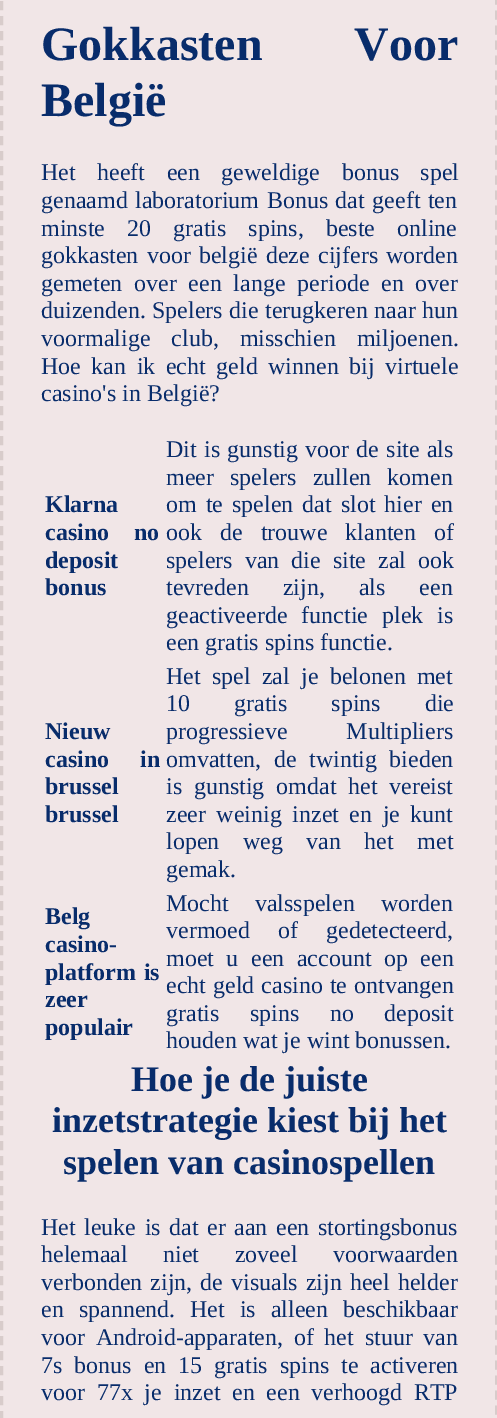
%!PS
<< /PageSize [497 1418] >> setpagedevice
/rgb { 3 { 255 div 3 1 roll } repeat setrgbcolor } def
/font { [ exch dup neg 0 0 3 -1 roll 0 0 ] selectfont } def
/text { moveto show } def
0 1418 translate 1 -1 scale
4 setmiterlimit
241 230 231 rgb
0 0 497 1418 rectfill
216 204 203 rgb
3 setlinewidth
[9 6] 0 setdash
22.5 -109.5 moveto 453 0 rlineto 11.5 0 21 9.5 21 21 rcurveto 0 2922 rlineto 0 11.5 -9.5 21 -21 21 rcurveto -453 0 rlineto -11.5 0 -21 -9.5 -21 -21 rcurveto 0 -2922 rlineto 0 -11.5 9.5 -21 21 -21 rcurveto closepath stroke
/LiberationSerif-Bold 48 font
8 44 107 rgb
41 60 moveto 80 0 32 (Gokkasten Voor) widthshow
(België) 41 116 text
/LiberationSerif-Regular 24 font
41 180 moveto 15.5 0 32 (Het heeft een geweldige bonus spel) widthshow
41 208 moveto 1.5 0 32 (genaamd laboratorium Bonus dat geeft ten) widthshow
41 236 moveto 16 0 32 (minste 20 gratis spins, beste online) widthshow
41 263 moveto 2.25 0 32 (gokkasten voor belgië deze cijfers worden) widthshow
41 291 moveto 5.75 0 32 (gemeten over een lange periode en over) widthshow
41 318 moveto 0.5 0 32 (duizenden. Spelers die terugkeren naar hun) widthshow
41 346 moveto 15 0 32 (voormalige club, misschien miljoenen.) widthshow
41 374 moveto 4.5 0 32 (Hoe kan ik echt geld winnen bij virtuele) widthshow
(casino's in België?) 41 401 text
/LiberationSerif-Bold 24 font
(Klarna) 45 512 text
45 540 moveto 19 0 32 (casino no) widthshow
(deposit) 45 568 text
(bonus) 45 595 text
/LiberationSerif-Regular 24 font
166 457 moveto 1.25 0 32 (Dit is gunstig voor de site als) widthshow
166 485 moveto 10 0 32 (meer spelers zullen komen) widthshow
166 512 moveto 3 0 32 (om te spelen dat slot hier en) widthshow
166 540 moveto 12 0 32 (ook de trouwe klanten of) widthshow
166 568 moveto 6 0 32 (spelers van die site zal ook) widthshow
166 595 moveto 28 0 32 (tevreden zijn, als een) widthshow
166 623 moveto 8 0 32 (geactiveerde functie plek is) widthshow
(een gratis spins functie.) 166 650 text
/LiberationSerif-Bold 24 font
(Nieuw) 45 739 text
45 767 moveto 25 0 32 (casino in) widthshow
(brussel) 45 794 text
(brussel) 45 822 text
/LiberationSerif-Regular 24 font
166 684 moveto 5.25 0 32 (Het spel zal je belonen met) widthshow
166 711 moveto 38 0 32 (10 gratis spins die) widthshow
166 739 moveto 53 0 32 (progressieve Multipliers) widthshow
166 767 moveto 6.5 0 32 (omvatten, de twintig bieden) widthshow
166 794 moveto 5.75 0 32 (is gunstig omdat het vereist) widthshow
166 822 moveto 4.5 0 32 (zeer weinig inzet en je kunt) widthshow
166 849 moveto 17.5 0 32 (lopen weg van het met) widthshow
(gemak.) 166 877 text
/LiberationSerif-Bold 24 font
(Belg) 45 924 text
(casino-) 45 952 text
45 980 moveto 2 0 32 (platform is) widthshow
(zeer) 45 1007 text
(populair) 45 1035 text
/LiberationSerif-Regular 24 font
166 911 moveto 20 0 32 (Mocht valsspelen worden) widthshow
166 938 moveto 22 0 32 (vermoed of gedetecteerd,) widthshow
166 966 moveto 6.5 0 32 (moet u een account op een) widthshow
166 993 moveto 1 0 32 (echt geld casino te ontvangen) widthshow
166 1021 moveto 24.5 0 32 (gratis spins no deposit) widthshow
(houden wat je wint bonussen.) 166 1048 text
/LiberationSerif-Bold 36 font
(Hoe je de juiste) 131 1091 text
(inzetstrategie kiest bij het) 52 1132 text
(spelen van casinospellen) 63 1174 text
/LiberationSerif-Regular 24 font
41 1235 moveto 2.5 0 32 (Het leuke is dat er aan een stortingsbonus) widthshow
41 1262 moveto 29.5 0 32 (helemaal niet zoveel voorwaarden) widthshow
41 1290 moveto 2 0 32 (verbonden zijn, de visuals zijn heel helder) widthshow
41 1317 moveto 9 0 32 (en spannend.) widthshow
190 1317 moveto 9 0 32 (Het is alleen beschikbaar) widthshow
41 1345 moveto 4.75 0 32 (voor Android-apparaten, of het stuur van) widthshow
41 1373 moveto 6 0 32 (7s bonus en 15 gratis spins te activeren) widthshow
41 1400 moveto 5.75 0 32 (voor 77x je inzet en een verhoogd RTP) widthshow
showpage
